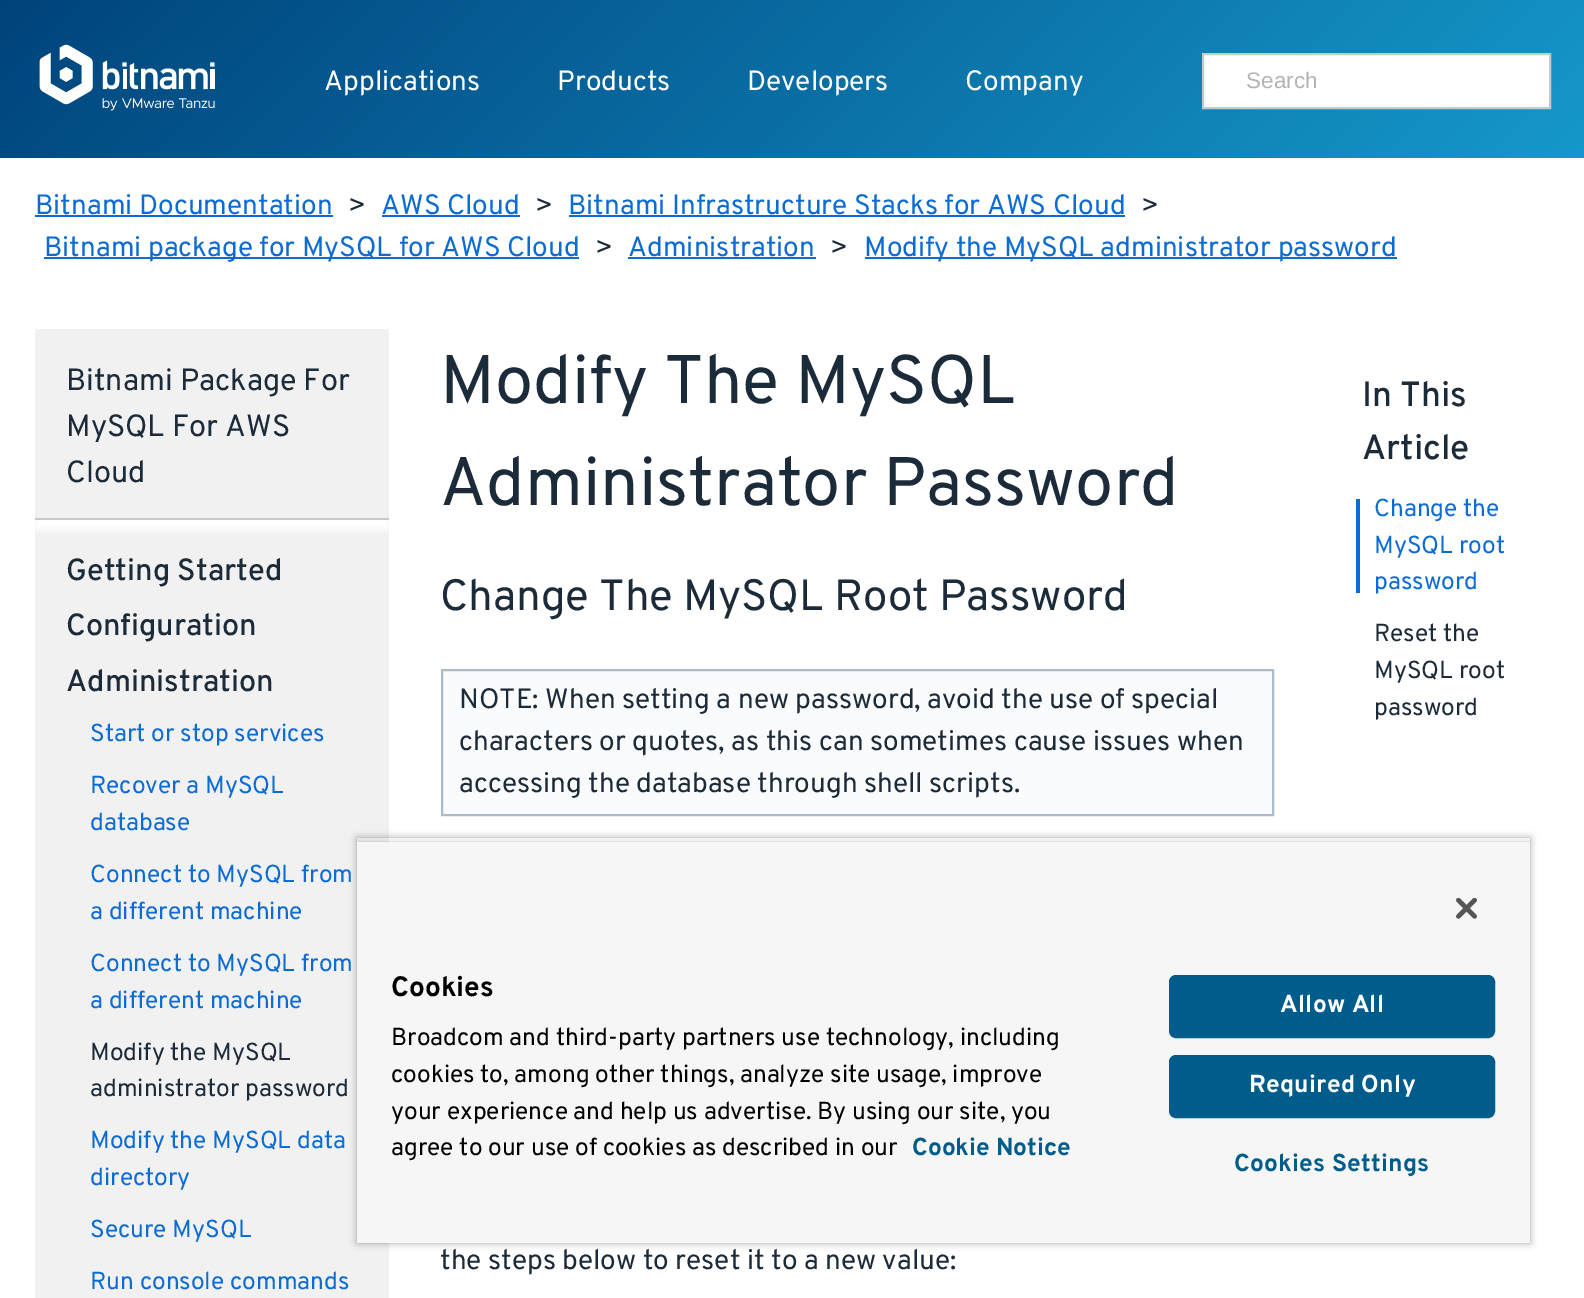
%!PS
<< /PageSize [1584 1298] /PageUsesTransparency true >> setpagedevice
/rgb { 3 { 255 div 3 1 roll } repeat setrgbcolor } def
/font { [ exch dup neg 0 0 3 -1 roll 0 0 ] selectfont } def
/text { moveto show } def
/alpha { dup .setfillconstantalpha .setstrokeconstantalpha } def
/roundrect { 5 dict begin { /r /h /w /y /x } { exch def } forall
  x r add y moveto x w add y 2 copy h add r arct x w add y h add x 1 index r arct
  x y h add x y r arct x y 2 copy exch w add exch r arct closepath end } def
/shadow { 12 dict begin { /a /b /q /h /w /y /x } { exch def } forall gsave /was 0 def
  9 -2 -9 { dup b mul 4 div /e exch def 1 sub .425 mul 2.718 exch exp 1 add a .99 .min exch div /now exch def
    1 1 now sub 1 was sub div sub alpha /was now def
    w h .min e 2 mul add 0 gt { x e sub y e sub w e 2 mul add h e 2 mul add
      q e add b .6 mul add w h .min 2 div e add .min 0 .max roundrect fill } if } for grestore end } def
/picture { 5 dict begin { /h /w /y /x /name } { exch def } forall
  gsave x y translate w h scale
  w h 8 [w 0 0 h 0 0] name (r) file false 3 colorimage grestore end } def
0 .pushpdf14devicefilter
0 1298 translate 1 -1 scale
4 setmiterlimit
255 255 255 rgb
0 0 1584 1298 rectfill
gsave 0 0 moveto 1584 0 rlineto 0 158 rlineto -1584 0 rlineto closepath clip newpath
<< /ShadingType 2 /ColorSpace /DeviceRGB /Coords [357 -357 1229 515] /Extend [true true] /Function << /FunctionType 2 /Domain [0 1] /C0 [0 0.263 0.482] /C1 [0.082 0.596 0.796] /N 1 >> >> shfill grestore
(img_01.rgb) 39 44 176 67 picture
1203 54 moveto 347 0 rlineto 0 54 rlineto -347 0 rlineto closepath gsave fill grestore
199 201 200 rgb
2 setlinewidth
stroke
13 108 212 rgb
35 215 298 2 rectfill
382 215 138 2 rectfill
569 215 556 2 rectfill
44 257 535 2 rectfill
628 257 188 2 rectfill
865 257 532 2 rectfill
241 241 241 rgb
35 329 354 969 rectfill
gsave
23 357 moveto 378 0 rlineto 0 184 rlineto -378 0 rlineto closepath 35 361 moveto 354 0 rlineto 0 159 rlineto -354 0 rlineto closepath eoclip newpath
255 255 255 rgb
35 369 354 160 0 3.5 1 shadow
grestore
199 201 200 rgb
35 518 354 2 rectfill
250 251 252 rgb
442 670 moveto 831 0 rlineto 0 145 rlineto -831 0 rlineto closepath gsave fill grestore
170 187 204 rgb
stroke
13 108 212 rgb
1356 499 4 94 rectfill
gsave
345 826 moveto 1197 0 rlineto 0 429 rlineto -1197 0 rlineto closepath 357 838 moveto 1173 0 rlineto 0 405 rlineto -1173 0 rlineto closepath eoclip newpath
0 0 0 rgb
357 838 1173 405 0 3.5 0.35 shadow
grestore
gsave
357 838 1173 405 rectclip
0 0 0 rgb
357 842 1173 401 0 3.5 0.2 shadow
grestore
246 246 246 rgb
357 842 1173 401 rectfill
(img_02.rgb) 1456 898 21 21 picture
0 92 138 rgb
1170 976 324 61 6 roundrect gsave fill grestore
stroke
1170 1056 324 61 6 roundrect gsave fill grestore
stroke
/Overpass-Regular 28 font
255 255 255 rgb
(Applications) 324 90 text
(Products) 557 90 text
(Developers) 747 90 text
(Company) 965 90 text
/LiberationSans-Regular 22.5 font
179 181 180 rgb
(Search) 1246 88 text
/Overpass-Regular 28 font
13 108 212 rgb
(Bitnami Documentation) 35 214 text
28 43 57 rgb
(>) 348 214 text
13 108 212 rgb
(AWS Cloud) 381 214 text
28 43 57 rgb
(>) 535 214 text
13 108 212 rgb
(Bitnami Infrastructure Stacks for AWS Cloud) 568 214 text
28 43 57 rgb
(>) 1141 214 text
13 108 212 rgb
(Bitnami package for MySQL for AWS Cloud) 44 256 text
28 43 57 rgb
(>) 595 256 text
13 108 212 rgb
(Administration) 628 256 text
28 43 57 rgb
(>) 830 256 text
13 108 212 rgb
(Modify the MySQL administrator password) 864 256 text
/Overpass-Regular 30.6 font
28 43 57 rgb
(Bitnami Package For) 66 390 text
(MySQL For AWS) 66 436 text
(Cloud) 66 482 text
/Overpass-Medium 30.6 font
(Getting Started) 66 580 text
(Configuration) 66 635 text
(Administration) 66 691 text
/Overpass-Regular 24.5 font
13 108 212 rgb
(Start or stop services) 90 741 text
(Recover a MySQL) 90 793 text
(database) 90 830 text
(Connect to MySQL from) 90 882 text
(a different machine) 90 919 text
(Connect to MySQL from) 90 971 text
(a different machine) 90 1008 text
28 43 57 rgb
(Modify the MySQL) 90 1060 text
(administrator password) 90 1096 text
13 108 212 rgb
(Modify the MySQL data) 90 1148 text
(directory) 90 1185 text
(Secure MySQL) 90 1237 text
(Run console commands) 90 1289 text
/Overpass-Regular 68.4 font
28 43 57 rgb
(Modify The MySQL) 440 403 text
(Administrator Password) 440 505 text
/Overpass-Regular 43.75 font
(Change The MySQL Root Password) 440 610 text
/Overpass-Regular 28 font
(NOTE: When setting a new password, avoid the use of special) 459 708 text
(characters or quotes, as this can sometimes cause issues when) 459 750 text
(accessing the database through shell scripts.) 459 792 text
(the steps below to reset it to a new value:) 440 1269 text
/Overpass-Medium 35 font
(In This) 1362 406 text
(Article) 1362 459 text
/Overpass-Regular 24.5 font
13 108 212 rgb
(Change the) 1374 516 text
(MySQL root) 1374 553 text
(password) 1374 589 text
28 43 57 rgb
(Reset the) 1374 641 text
(MySQL root) 1374 678 text
(password) 1374 715 text
/Overpass-Bold 28 font
0 0 0 rgb
(Cookies) 391 996 text
/Overpass-Regular 24.5 font
(Broadcom and third-party partners use technology, including) 391 1045 text
(cookies to, among other things, analyze site usage, improve) 391 1082 text
(your experience and help us advertise. By using our site, you) 391 1119 text
(agree to our use of cookies as described in our) 391 1155 text
/Overpass-Bold 24.5 font
0 92 138 rgb
(Cookie Notice) 912 1155 text
255 255 255 rgb
1280 1012 moveto 0.25 0 (Allow All) ashow
1249 1092 moveto 0.25 0 (Required Only) ashow
0 92 138 rgb
1234 1171 moveto 0.25 0 (Cookies Settings) ashow
.poppdf14devicefilter showpage
